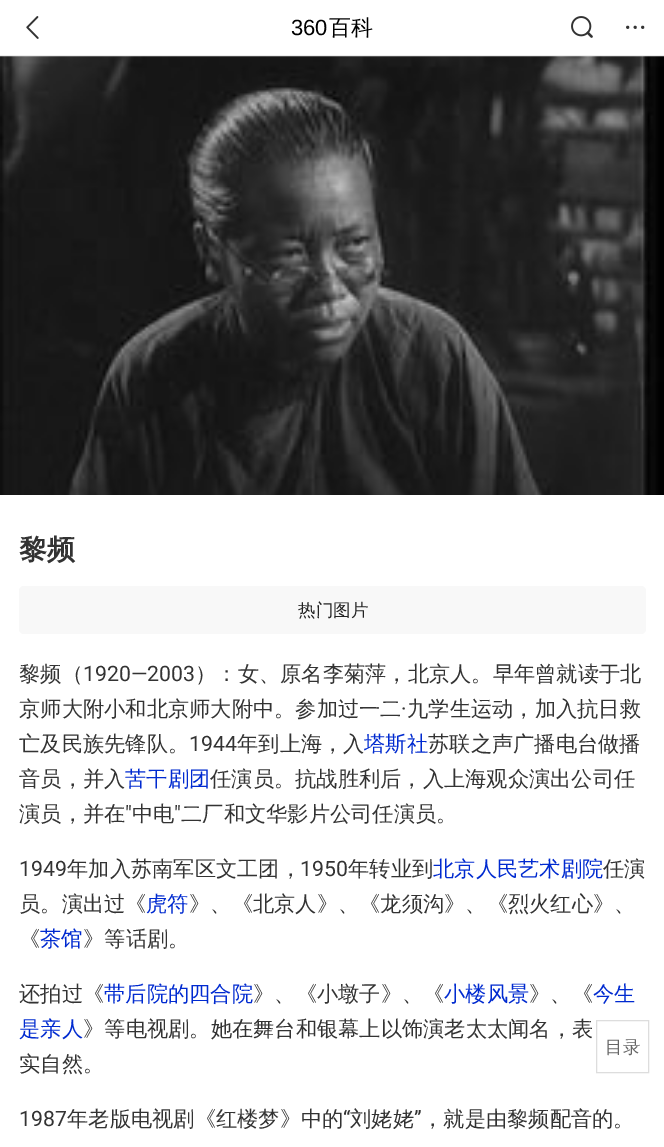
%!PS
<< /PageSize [664 1147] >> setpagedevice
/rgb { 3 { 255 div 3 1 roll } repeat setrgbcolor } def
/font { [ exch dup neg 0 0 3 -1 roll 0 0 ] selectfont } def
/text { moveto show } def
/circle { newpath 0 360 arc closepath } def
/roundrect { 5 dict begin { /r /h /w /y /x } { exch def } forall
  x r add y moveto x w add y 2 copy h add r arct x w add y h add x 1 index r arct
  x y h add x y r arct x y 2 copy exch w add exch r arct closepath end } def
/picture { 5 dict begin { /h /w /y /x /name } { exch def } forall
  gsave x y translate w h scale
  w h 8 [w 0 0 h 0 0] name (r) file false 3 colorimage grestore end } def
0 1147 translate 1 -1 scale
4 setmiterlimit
255 255 255 rgb
0 0 664 1147 rectfill
237 237 237 rgb
0 55 664 1 rectfill
(img_01.rgb) 26 16 13 23 picture
(img_02.rgb) 571 16 22 22 picture
51 51 51 rgb
627.7 27.3 1.5 circle fill
635.2 27.3 1.5 circle fill
642.7 27.3 1.5 circle fill
221 221 221 rgb
596.5 1020.5 52 52 rectstroke
(img_03.rgb) 0 56 664 439 picture
248 248 248 rgb
19 586 627 48 5 roundrect fill
/LiberationSans-Regular 22 font
0 0 0 rgb
(360) 291 35 text
/WenQuanYiZenHei-Medium 22 font
(百科) 329 35 text
/WenQuanYiZenHei-Medium 17.5 font
102 102 102 rgb
(目录) 605 1053 text
/WenQuanYiZenHei-Bold 28 font
51 51 51 rgb
(黎频) 19 559 text
/WenQuanYiZenHei-Medium 17.5 font
34 34 34 rgb
(热门图片) 298 616 text
/WenQuanYiZenHei-Medium 21.25 font
51 51 51 rgb
(黎频（) 19 681 text
/Roboto-Regular 21.25 font
(1920—2003) 83 681 text
/WenQuanYiZenHei-Medium 21.25 font
(）：女、原名李菊萍，北京人。早年曾就读于北) 195 681 text
(京师大附小和北京师大附中。参加过一二) 19 716 text
/Roboto-Regular 21.25 font
(·) 401 716 text
/WenQuanYiZenHei-Medium 21.25 font
(九学生运动，加入抗日救) 407 716 text
(亡及民族先锋队。) 19 751 text
/Roboto-Regular 21.25 font
(1944) 189 751 text
/WenQuanYiZenHei-Medium 21.25 font
(年到上海，入) 237 751 text
0 42 208 rgb
(塔斯社) 364 751 text
51 51 51 rgb
(苏联之声广播电台做播) 428 751 text
(音员，并入) 19 786 text
0 42 208 rgb
(苦干剧团) 125 786 text
51 51 51 rgb
(任演员。抗战胜利后，入上海观众演出公司任) 210 786 text
(演员，并在) 19 821 text
/Roboto-Regular 21.25 font
(") 125 821 text
/WenQuanYiZenHei-Medium 21.25 font
(中电) 132 821 text
/Roboto-Regular 21.25 font
(") 174 821 text
/WenQuanYiZenHei-Medium 21.25 font
(二厂和文华影片公司任演员。) 181 821 text
/Roboto-Regular 21.25 font
(1949) 19 876 text
/WenQuanYiZenHei-Medium 21.25 font
(年加入苏南军区文工团，) 67 876 text
/Roboto-Regular 21.25 font
(1950) 300 876 text
/WenQuanYiZenHei-Medium 21.25 font
(年转业到) 348 876 text
0 42 208 rgb
(北京人民艺术剧院) 433 876 text
51 51 51 rgb
(任演) 603 876 text
(员。演出过《) 19 911 text
0 42 208 rgb
(虎符) 146 911 text
51 51 51 rgb
(》、《北京人》、《龙须沟》、《烈火红心》、) 189 911 text
(《) 19 946 text
0 42 208 rgb
(茶馆) 40 946 text
51 51 51 rgb
(》等话剧。) 83 946 text
(还拍过《) 19 1001 text
0 42 208 rgb
(带后院的四合院) 104 1001 text
51 51 51 rgb
(》、《小墩子》、《) 253 1001 text
0 42 208 rgb
(小楼风景) 444 1001 text
51 51 51 rgb
(》、《) 529 1001 text
0 42 208 rgb
(今生) 593 1001 text
(是亲人) 19 1036 text
51 51 51 rgb
(》等电视剧。她在舞台和银幕上以饰演老太太闻名，表) 83 1036 text
(实自然。) 19 1071 text
/Roboto-Regular 21.25 font
(1987) 19 1126 text
/WenQuanYiZenHei-Medium 21.25 font
(年老版电视剧《红楼梦》中的) 67 1126 text
/Roboto-Regular 21.25 font
(“) 343 1126 text
/WenQuanYiZenHei-Medium 21.25 font
(刘姥姥) 350 1126 text
/Roboto-Regular 21.25 font
(”) 414 1126 text
/WenQuanYiZenHei-Medium 21.25 font
(，就是由黎频配音的。) 422 1126 text
showpage
